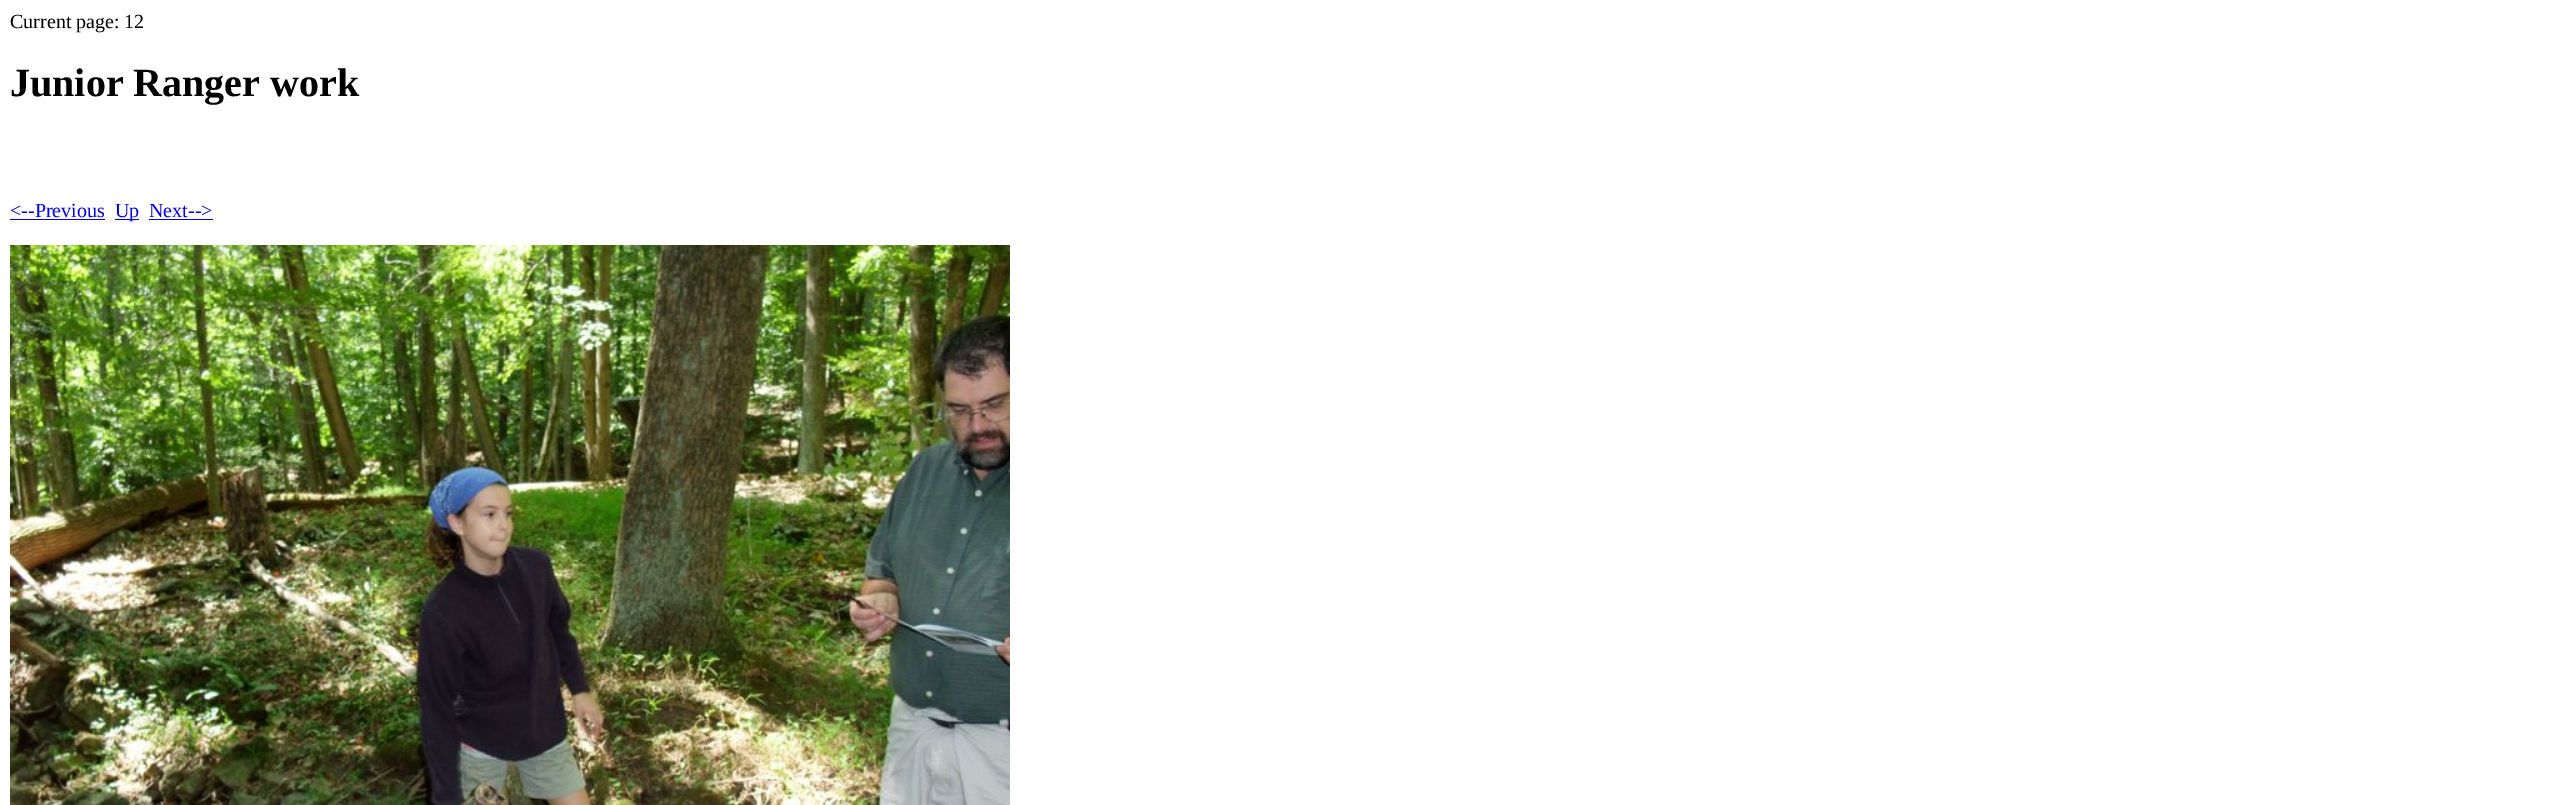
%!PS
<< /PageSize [2572 805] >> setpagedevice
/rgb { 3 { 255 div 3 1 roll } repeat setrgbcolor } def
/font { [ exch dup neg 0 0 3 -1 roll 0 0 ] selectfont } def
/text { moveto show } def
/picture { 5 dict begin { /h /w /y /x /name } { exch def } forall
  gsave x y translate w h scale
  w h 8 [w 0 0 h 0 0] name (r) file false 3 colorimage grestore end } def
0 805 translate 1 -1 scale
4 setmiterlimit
255 255 255 rgb
0 0 2572 805 rectfill
0 0 238 rgb
10 219 95 1 rectfill
115 219 24 1 rectfill
149 219 64 1 rectfill
(img_01.rgb) 10 245 1000 560 picture
/LiberationSerif-Regular 20 font
0 0 0 rgb
(Current page: 12) 10 28 text
/LiberationSerif-Bold 40 font
(Junior Ranger work) 10 96 text
/LiberationSerif-Regular 20 font
0 0 238 rgb
(<--Previous) 10 217 text
(Up) 115 217 text
(Next-->) 149 217 text
showpage
